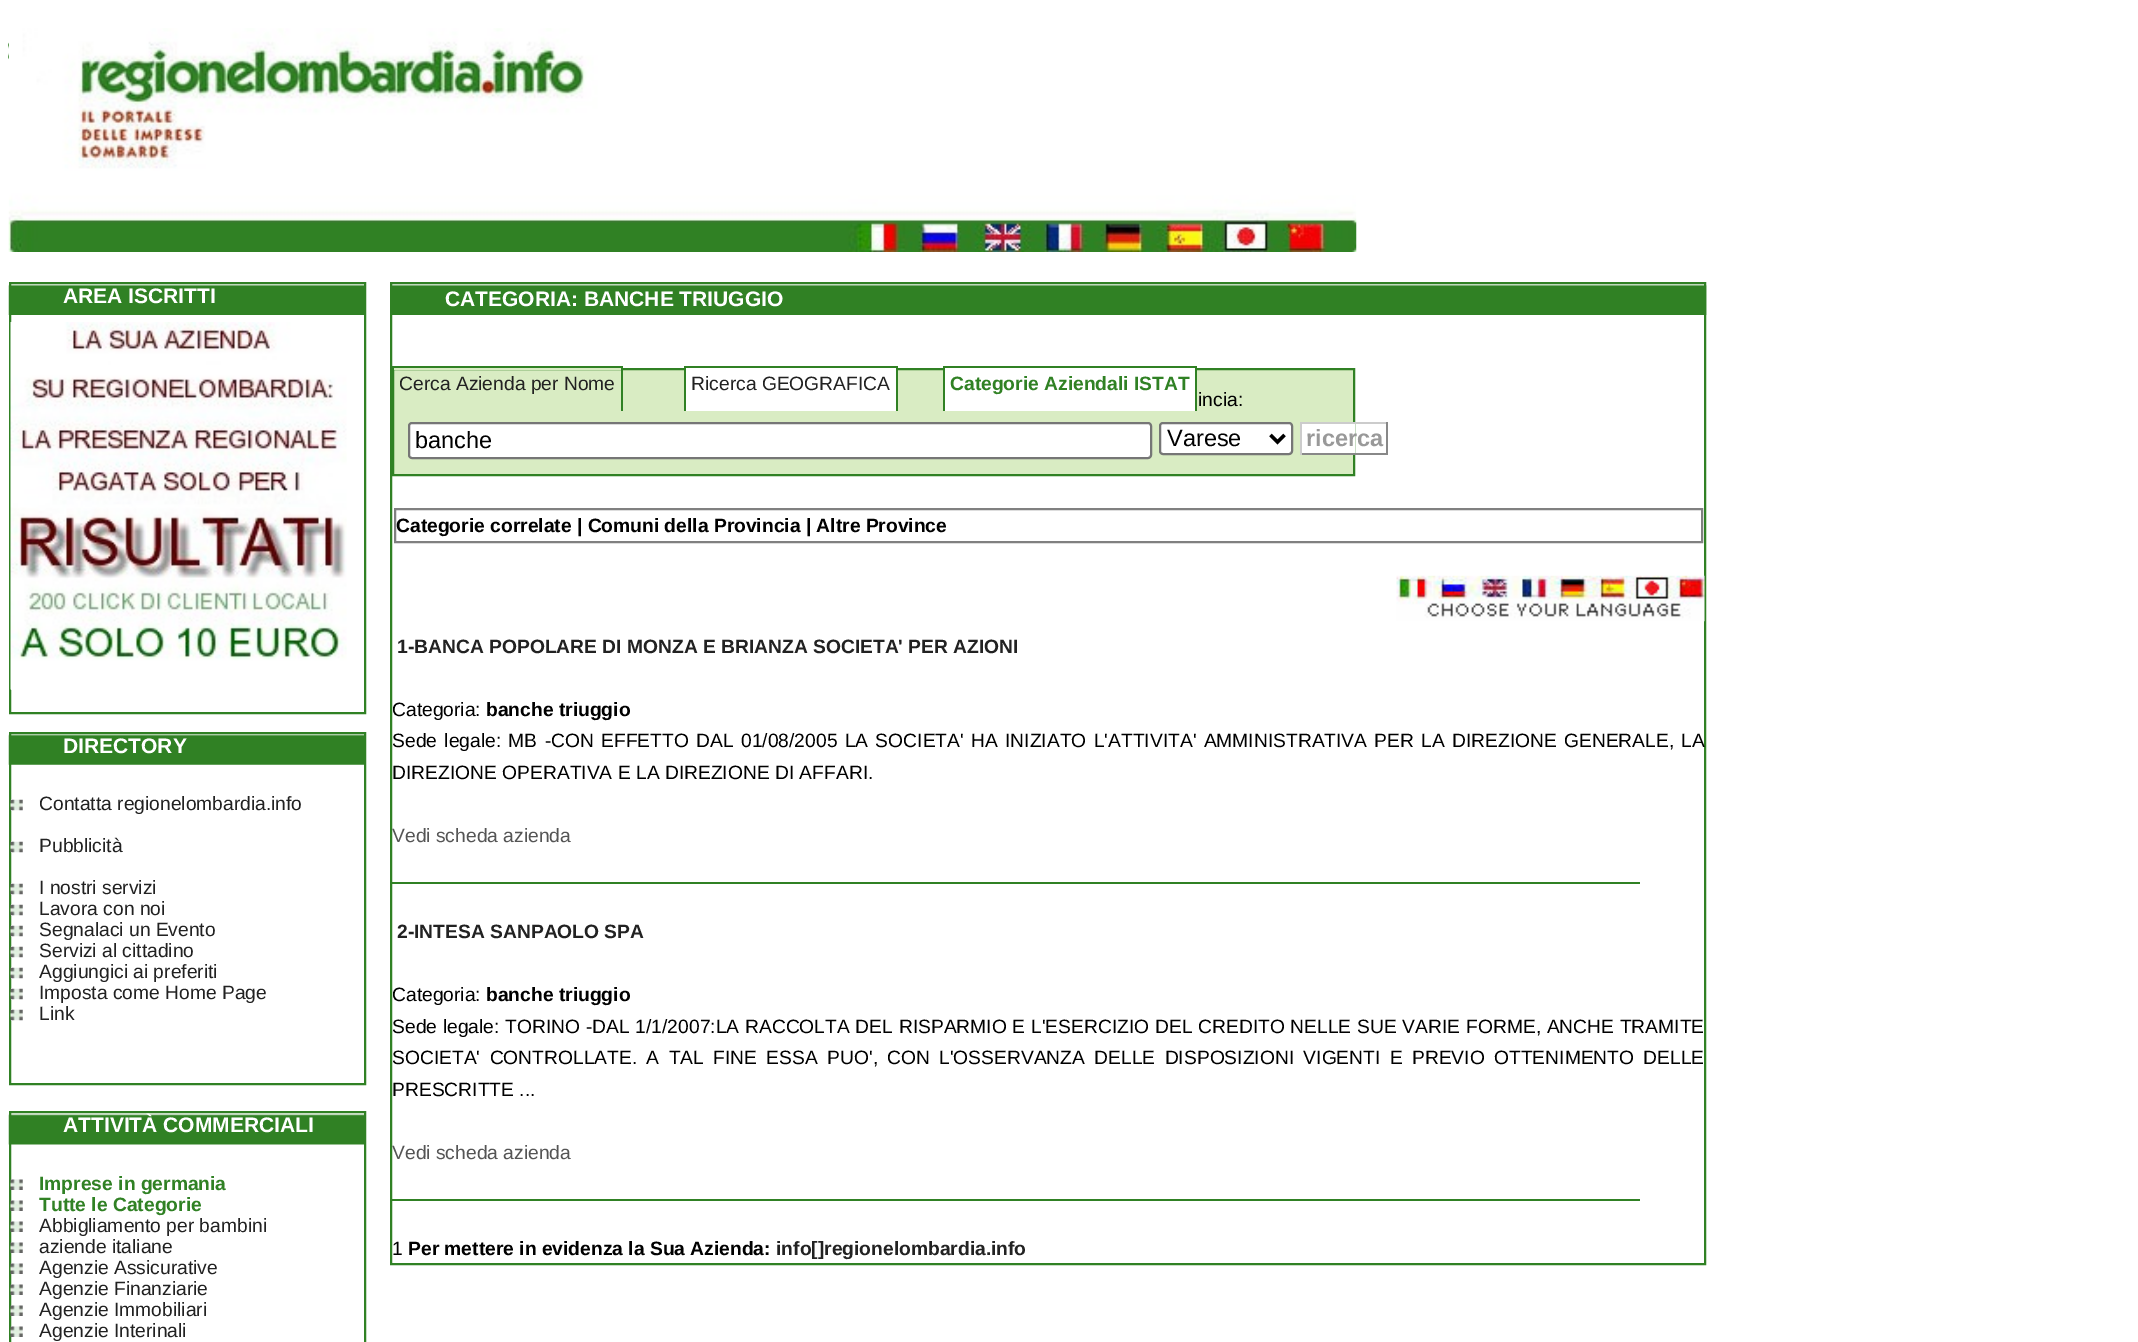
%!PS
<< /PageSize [2138 1342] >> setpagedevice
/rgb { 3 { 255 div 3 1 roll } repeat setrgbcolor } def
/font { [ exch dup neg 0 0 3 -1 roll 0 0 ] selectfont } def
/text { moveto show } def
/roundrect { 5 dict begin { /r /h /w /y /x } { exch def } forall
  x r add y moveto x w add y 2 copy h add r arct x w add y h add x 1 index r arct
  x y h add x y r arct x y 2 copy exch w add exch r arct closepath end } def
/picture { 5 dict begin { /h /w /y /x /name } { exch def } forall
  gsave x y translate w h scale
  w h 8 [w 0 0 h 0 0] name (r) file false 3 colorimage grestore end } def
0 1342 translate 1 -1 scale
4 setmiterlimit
255 255 255 rgb
0 0 2138 1342 rectfill
(img_01.rgb) 8 28 1349 224 picture
(img_02.rgb) 8 284 356 31 picture
48 129 36 rgb
2 setlinewidth
10 283 355 430 rectstroke
(img_03.rgb) 10 322 337 368 picture
(img_04.rgb) 8 734 356 31 picture
10 733 355 351 rectstroke
(img_05.rgb) 10 799 13 12 picture
(img_05.rgb) 10 841 13 12 picture
(img_05.rgb) 10 883 13 12 picture
(img_05.rgb) 10 904 13 12 picture
(img_05.rgb) 10 925 13 12 picture
(img_05.rgb) 10 946 13 12 picture
(img_05.rgb) 10 967 13 12 picture
(img_05.rgb) 10 988 13 12 picture
(img_05.rgb) 10 1009 13 12 picture
(img_06.rgb) 8 1114 356 31 picture
10 1112 355 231 rectstroke
(img_07.rgb) 10 1179 13 11 picture
(img_07.rgb) 10 1200 13 11 picture
(img_07.rgb) 10 1221 13 11 picture
(img_07.rgb) 10 1242 13 11 picture
(img_07.rgb) 10 1263 13 11 picture
(img_07.rgb) 10 1284 13 11 picture
(img_07.rgb) 10 1305 13 11 picture
(img_07.rgb) 10 1326 13 11 picture
(img_08.rgb) 392 284 1315 31 picture
391 283 1314 981 rectstroke
217 236 195 rgb
393 369 moveto 961 0 rlineto 0 106 rlineto -961 0 rlineto closepath gsave fill grestore
48 129 36 rgb
stroke
217 236 195 rgb
394 368 227 2 rectfill
48 129 36 rgb
392 366 231 2 rectfill
621 366 2 45 rectfill
255 255 255 rgb
686 368 210 43 rectfill
48 129 36 rgb
684 366 214 2 rectfill
896 366 2 45 rectfill
684 366 2 45 rectfill
255 255 255 rgb
945 368 250 43 rectfill
48 129 36 rgb
943 366 254 2 rectfill
1195 366 2 45 rectfill
943 366 2 45 rectfill
255 255 255 rgb
409 423 742 35 3 roundrect gsave fill grestore
118 118 118 rgb
stroke
255 255 255 rgb
1160 423 132 31 3 roundrect gsave fill grestore
118 118 118 rgb
stroke
0 0 0 rgb
3.5 setlinewidth
1270.5 435 moveto 7 7 rlineto 7 -7 rlineto stroke
255 255 255 rgb
1302 424 53 29 rectfill
204 204 204 rgb
1300 422 88 2 rectfill
136 136 136 rgb
1386 422 2 33 rectfill
1300 453 88 2 rectfill
204 204 204 rgb
1300 422 2 33 rectfill
128 128 128 rgb
2 setlinewidth
395 509 1307 33 rectstroke
(img_09.rgb) 1396 575 309 47 picture
48 129 36 rgb
392 882 1248 2 rectfill
392 1199 1248 2 rectfill
/LiberationSans-Bold 21 font
255 255 255 rgb
(AREA ISCRITTI) 63 303 text
(DIRECTORY) 63 753 text
/LiberationSans-Regular 19.25 font
34 34 34 rgb
(Contatta regionelombardia.info) 39 810 text
(Pubblicità) 39 852 text
(I nostri servizi) 39 894 text
(Lavora con noi) 39 915 text
(Segnalaci un Evento) 39 936 text
(Servizi al cittadino) 39 957 text
(Aggiungici ai preferiti) 39 978 text
(Imposta come Home Page) 39 999 text
(Link) 39 1020 text
/LiberationSans-Bold 21 font
255 255 255 rgb
(ATTIVITÀ COMMERCIALI) 63 1132 text
/LiberationSans-Bold 19.25 font
48 129 36 rgb
(Imprese in germania) 39 1190 text
(Tutte le Categorie) 39 1211 text
/LiberationSans-Regular 19.25 font
34 34 34 rgb
(Abbigliamento per bambini) 39 1232 text
(aziende italiane) 39 1253 text
(Agenzie Assicurative) 39 1274 text
(Agenzie Finanziarie) 39 1295 text
(Agenzie Immobiliari) 39 1316 text
(Agenzie Interinali) 39 1337 text
/LiberationSans-Bold 21 font
255 255 255 rgb
(CATEGORIA: BANCHE TRIUGGIO) 445 306 text
/LiberationSans-Regular 19.25 font
34 34 34 rgb
(Cerca Azienda per Nome) 399 390 text
(Ricerca GEOGRAFICA) 691 390 text
/LiberationSans-Bold 19.25 font
48 129 36 rgb
(Categorie Aziendali ISTAT) 950 390 text
/LiberationSans-Regular 19.25 font
0 0 0 rgb
(incia:) 1198 406 text
/LiberationSans-Regular 23.5 font
(banche) 415 448 text
(Varese) 1167 446 text
/LiberationSans-Bold 23.5 font
153 153 153 rgb
(ricerca) 1306 446 text
/LiberationSans-Bold 19.25 font
0 0 0 rgb
(Categorie correlate | Comuni della Provincia | Altre Province) 396 532 text
34 34 34 rgb
(1-BANCA POPOLARE DI MONZA E BRIANZA SOCIETA' PER AZIONI) 397 653 text
/LiberationSans-Regular 19.25 font
0 0 0 rgb
(Categoria:) 392 716 text
/LiberationSans-Bold 19.25 font
(banche triuggio) 486 716 text
/LiberationSans-Regular 19.25 font
392 747 moveto 2 0 32 (Sede legale: MB -CON EFFETTO DAL 01/08/2005 LA SOCIETA' HA INIZIATO L'ATTIVITA' AMMINISTRATIVA) widthshow
1374 747 moveto 2 0 32 (PER LA DIREZIONE GENERALE, LA) widthshow
(DIREZIONE OPERATIVA E LA DIREZIONE DI AFFARI.) 392 779 text
85 85 85 rgb
(Vedi scheda azienda) 392 842 text
/LiberationSans-Bold 19.25 font
34 34 34 rgb
(2-INTESA SANPAOLO SPA) 397 938 text
/LiberationSans-Regular 19.25 font
0 0 0 rgb
(Categoria:) 392 1001 text
/LiberationSans-Bold 19.25 font
(banche triuggio) 486 1001 text
/LiberationSans-Regular 19.25 font
392 1033 moveto 0.4 0 32 (Sede legale: TORINO -DAL 1/1/2007:LA RACCOLTA DEL RISPARMIO E L'ESERCIZIO DEL CREDITO NELLE SUE VARIE) widthshow
1466 1033 moveto 0.4 0 32 (FORME, ANCHE TRAMITE) widthshow
392 1064 moveto 4 0 32 (SOCIETA' CONTROLLATE. A TAL FINE ESSA PUO', CON) widthshow
939 1064 moveto 4 0 32 (L'OSSERVANZA DELLE DISPOSIZIONI VIGENTI E PREVIO OTTENIMENTO DELLE) widthshow
(PRESCRITTE ...) 392 1096 text
85 85 85 rgb
(Vedi scheda azienda) 392 1159 text
0 0 0 rgb
(1) 392 1255 text
/LiberationSans-Bold 19.25 font
(Per mettere in evidenza la Sua Azienda:) 408 1255 text
34 34 34 rgb
(info[]regionelombardia.info) 776 1255 text
showpage
